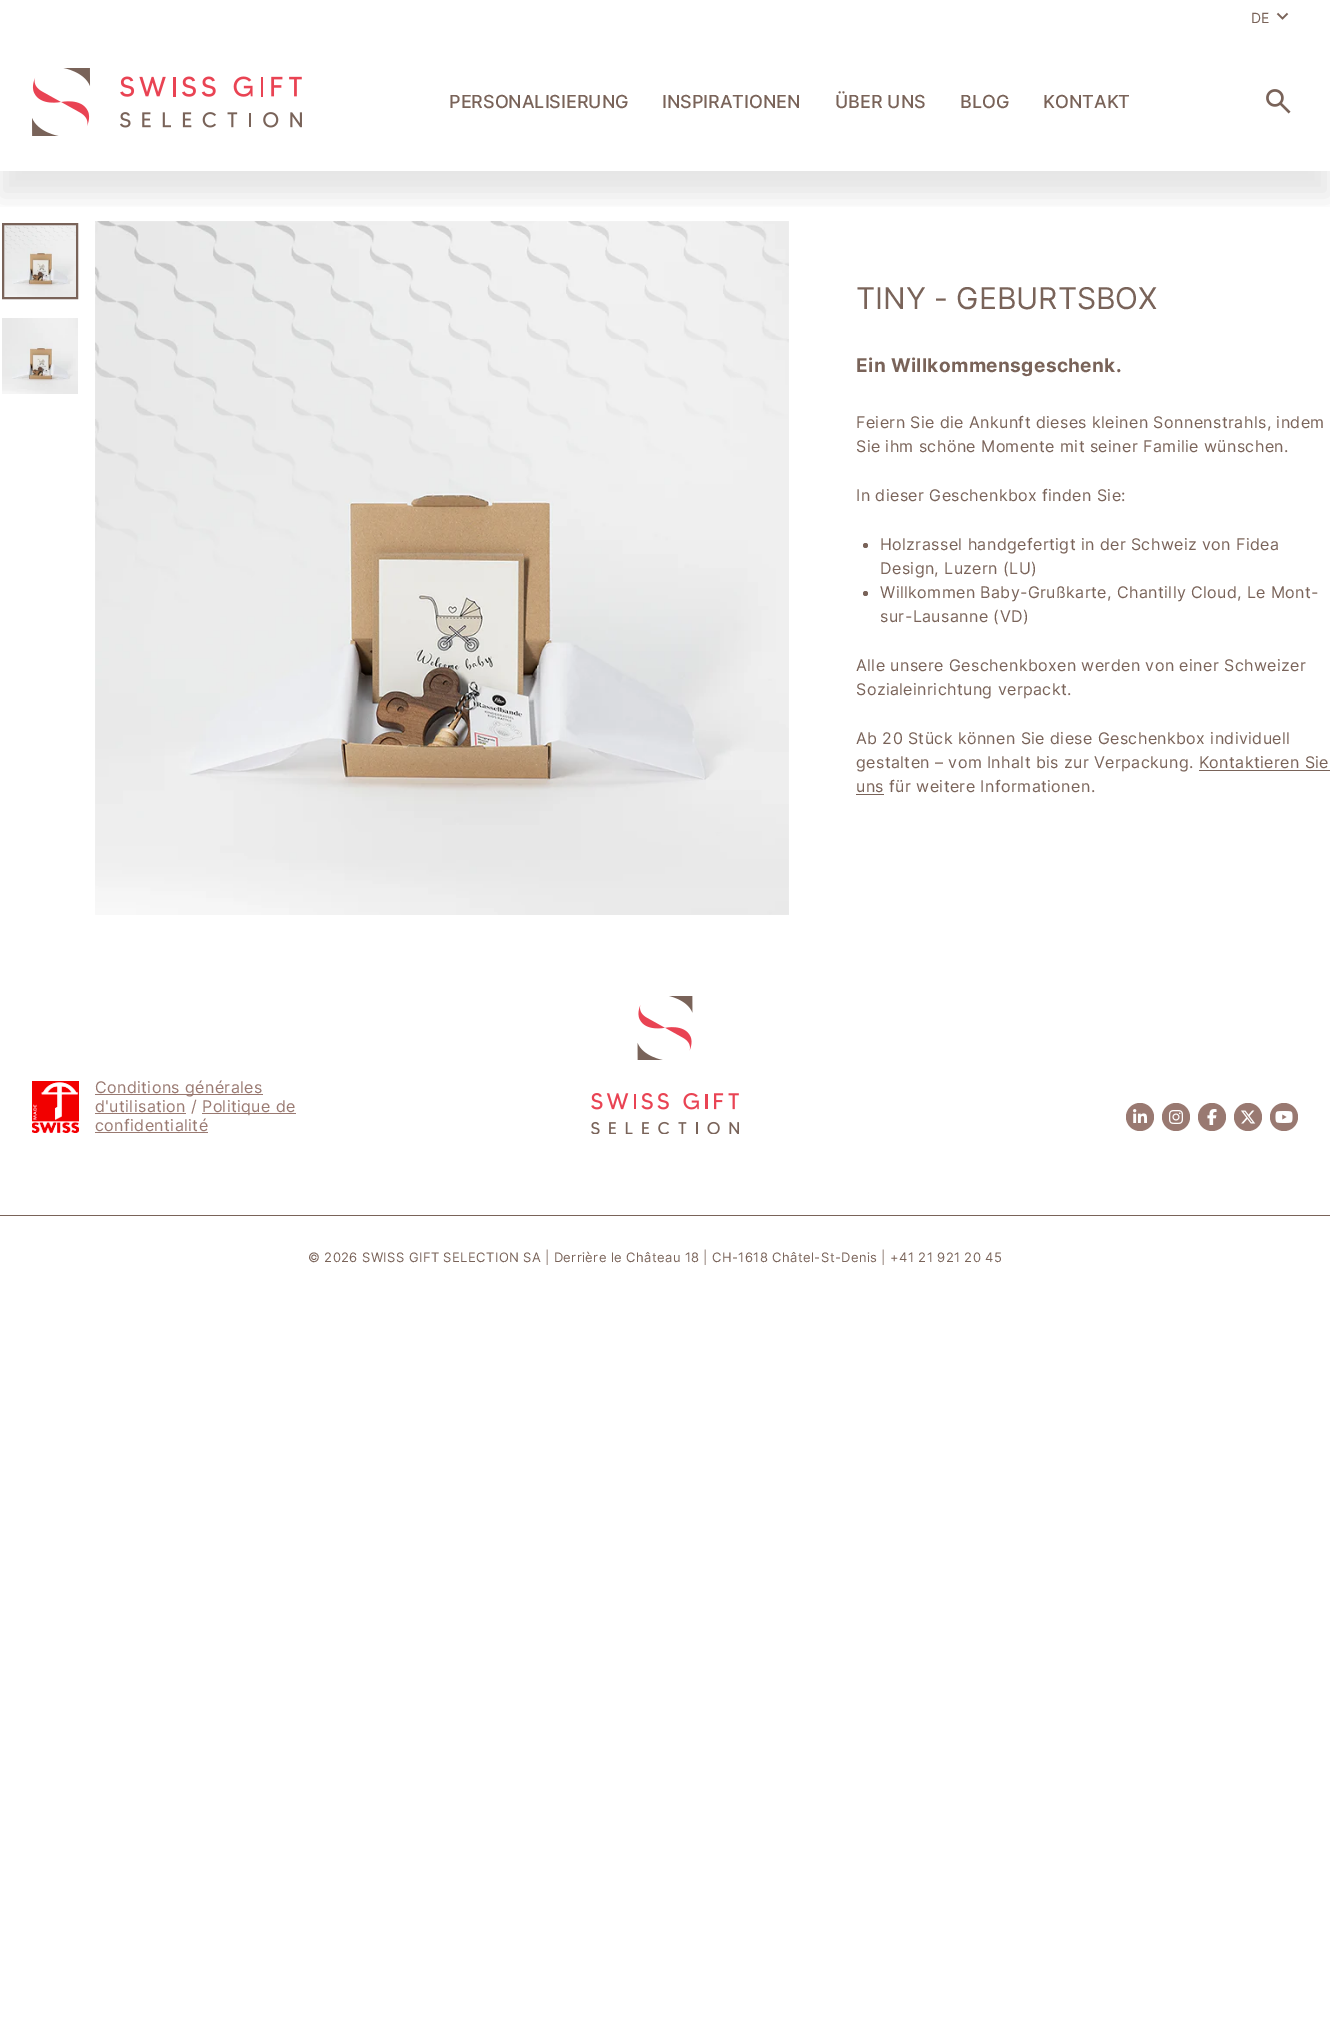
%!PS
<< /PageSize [1330 2028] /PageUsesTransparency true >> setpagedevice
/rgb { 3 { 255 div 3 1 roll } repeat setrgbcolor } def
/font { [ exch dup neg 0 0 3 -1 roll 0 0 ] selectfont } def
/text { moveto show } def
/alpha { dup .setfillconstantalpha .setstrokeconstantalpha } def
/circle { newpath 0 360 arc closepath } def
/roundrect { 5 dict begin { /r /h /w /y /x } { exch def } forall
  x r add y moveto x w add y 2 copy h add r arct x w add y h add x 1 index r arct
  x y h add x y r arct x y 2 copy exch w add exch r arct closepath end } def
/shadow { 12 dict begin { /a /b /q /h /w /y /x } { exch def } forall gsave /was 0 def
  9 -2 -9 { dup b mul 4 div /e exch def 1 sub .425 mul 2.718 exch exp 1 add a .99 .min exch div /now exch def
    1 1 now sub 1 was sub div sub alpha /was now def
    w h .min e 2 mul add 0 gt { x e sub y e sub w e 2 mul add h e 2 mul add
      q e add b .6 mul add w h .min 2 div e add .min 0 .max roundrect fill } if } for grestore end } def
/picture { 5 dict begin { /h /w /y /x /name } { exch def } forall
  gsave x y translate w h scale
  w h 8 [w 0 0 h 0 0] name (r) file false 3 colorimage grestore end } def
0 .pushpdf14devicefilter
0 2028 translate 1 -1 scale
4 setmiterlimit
255 255 255 rgb
0 0 1330 2028 rectfill
121 99 89 rgb
1.6 setlinewidth
1277.5 13.5 moveto 5 5 rlineto 5 -5 rlineto stroke
(img_03.rgb) 4 225 72 72 picture
2 setlinewidth
3 224 74 74 rectstroke
(img_05.rgb) 95 221 694 694 picture
gsave
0 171 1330 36 rectclip
0 0 0 rgb
0 58 1330 138 0 12.5 0.1 shadow
grestore
(img_01.rgb) 32 68 270 68 picture
(img_02.rgb) 1266 89 25 25 picture
(img_04.rgb) 2 318 76 76 picture
865.5 545.5 2.5 circle fill
865.5 593.5 2.5 circle fill
1199 770 131 1 rectfill
856 794 28 1 rectfill
(img_06.rgb) 32 1081 47 52 picture
153 121 113 rgb
95 1094 168 1 rectfill
95 1113 91 1 rectfill
202 1113 94 1 rectfill
95 1132 113 1 rectfill
(img_07.rgb) 591 996 148 138 picture
1140 1117 14 circle fill
(img_08.rgb) 1133 1109 14 14 picture
1176 1117 14 circle fill
(img_09.rgb) 1169 1110 14 14 picture
1212 1117 14 circle fill
(img_10.rgb) 1207 1109 10 16 picture
1248 1117 14 circle fill
(img_11.rgb) 1241 1110 15 14 picture
1284 1117 14 circle fill
(img_12.rgb) 1275 1111 18 12 picture
121 99 89 rgb
0 1215 1330 1 rectfill
/Inter-Regular 14 font
(DE) 1251 23 text
/Inter-Medium 18 font
(PERSONALISIERUNG) 449 108 text
(INSPIRATIONEN) 662 108 text
(ÜBER UNS) 835 108 text
(BLOG) 960 108 text
(KONTAKT) 1043 108 text
/Inter-Regular 30 font
(TINY - GEBURTSBOX) 856 309 text
/Inter-Bold 19 font
856 372 moveto 0.4 0 (Ein Willkommensgeschenk.) ashow
/Inter-Regular 16 font
856 428 moveto 0.4 0 (Feiern Sie die Ankunft dieses kleinen Sonnenstrahls, indem) ashow
856 452 moveto 0.4 0 (Sie ihm schöne Momente mit seiner Familie wünschen.) ashow
856 501 moveto 0.4 0 (In dieser Geschenkbox finden Sie:) ashow
880 550 moveto 0.4 0 (Holzrassel handgefertigt in der Schweiz von Fidea) ashow
880 574 moveto 0.4 0 (Design, Luzern \(LU\)) ashow
880 598 moveto 0.4 0 (Willkommen Baby-Grußkarte, Chantilly Cloud, Le Mont-) ashow
880 622 moveto 0.4 0 (sur-Lausanne \(VD\)) ashow
856 671 moveto 0.4 0 (Alle unsere Geschenkboxen werden von einer Schweizer) ashow
856 695 moveto 0.4 0 (Sozialeinrichtung verpackt.) ashow
856 744 moveto 0.4 0 (Ab 20 Stück können Sie diese Geschenkbox individuell) ashow
856 768 moveto 0.4 0 (gestalten – vom Inhalt bis zur Verpackung. Kontaktieren Sie) ashow
856 792 moveto 0.4 0 (uns für weitere Informationen.) ashow
153 121 113 rgb
95 1093 moveto 0.4 0 (Conditions générales) ashow
95 1112 moveto 0.4 0 (d'utilisation /) ashow
202 1112 moveto 0.4 0 (Politique de) ashow
95 1131 moveto 0.4 0 (confidentialité) ashow
/Inter-Regular 13 font
121 99 89 rgb
308 1262 moveto 0.4 0 (© 2026 SWISS GIFT SELECTION SA | Derrière le Château 18 | CH-1618 Châtel-St-Denis | +41 21 921 20 45) ashow
.poppdf14devicefilter showpage
